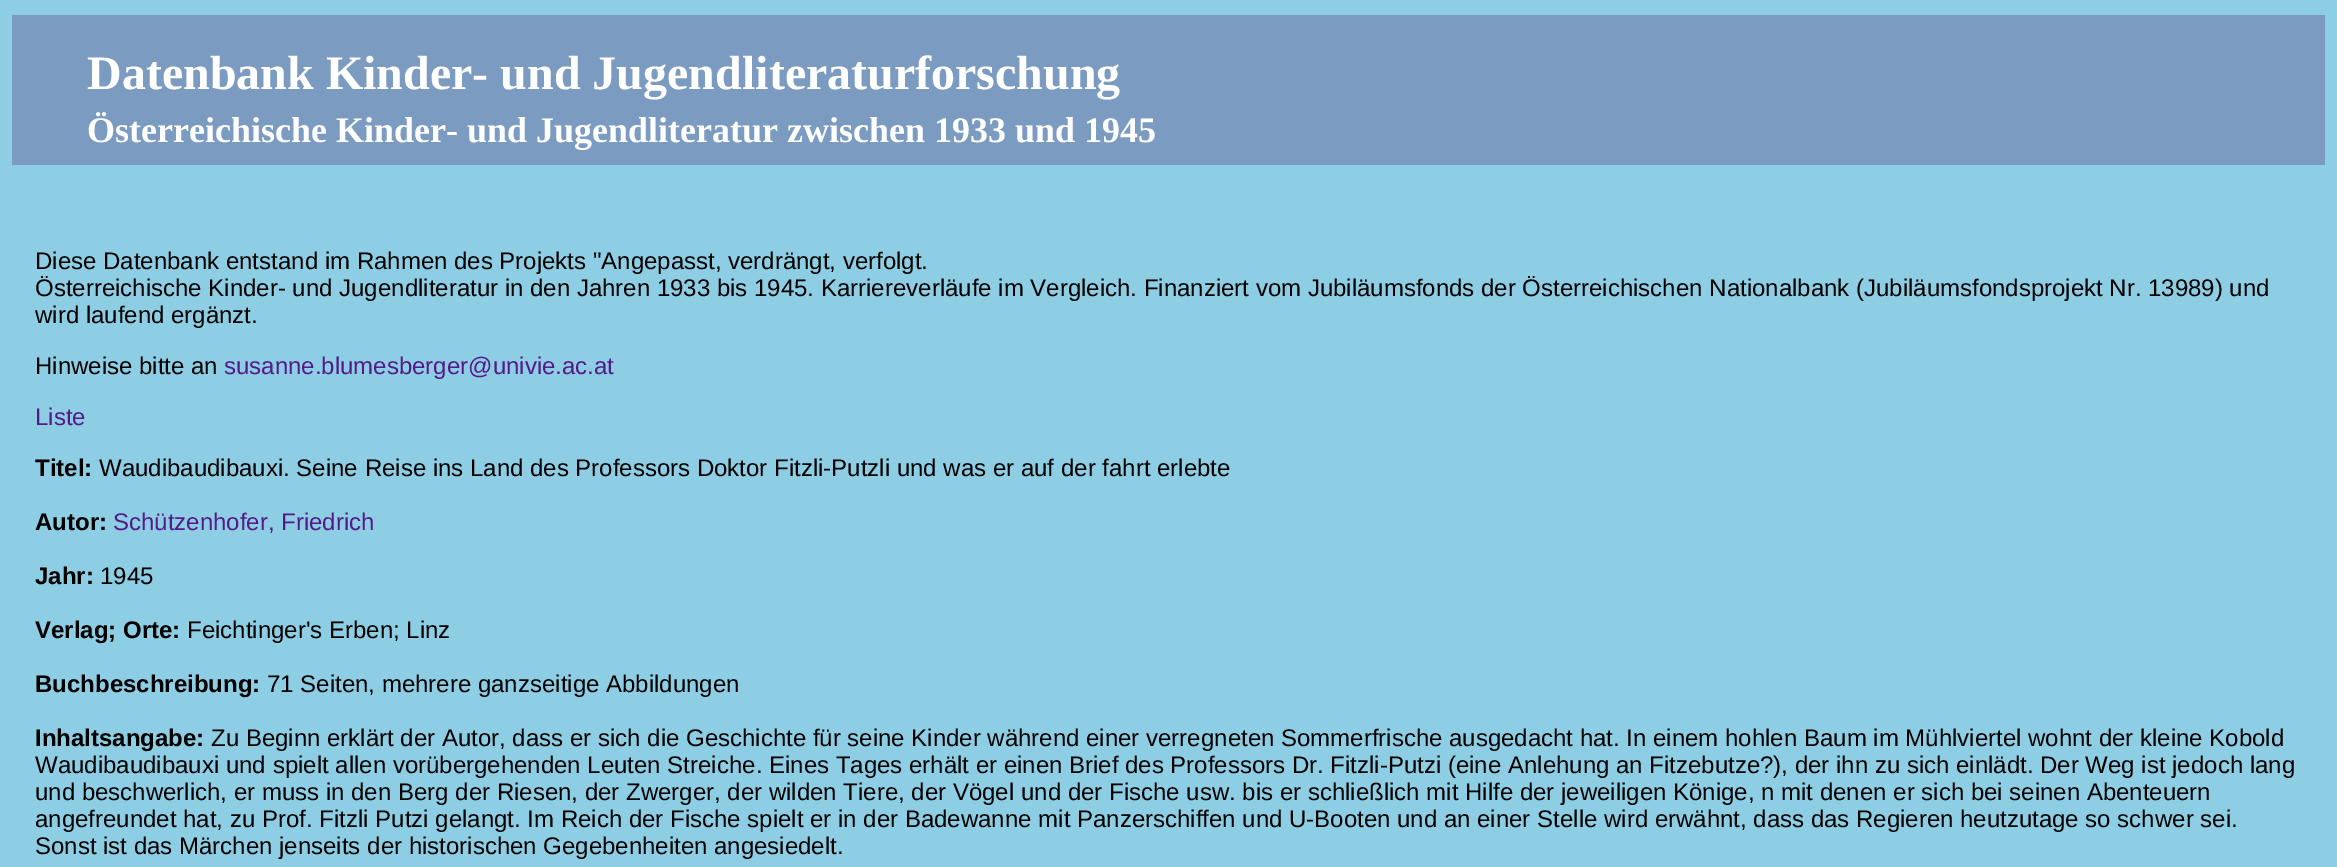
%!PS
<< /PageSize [2337 867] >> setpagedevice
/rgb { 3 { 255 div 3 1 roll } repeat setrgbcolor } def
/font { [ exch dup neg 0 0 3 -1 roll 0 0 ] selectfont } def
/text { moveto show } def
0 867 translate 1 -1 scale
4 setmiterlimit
141 206 228 rgb
0 0 2337 867 rectfill
124 155 193 rgb
12 15 2313 150 rectfill
/LiberationSerif-Bold 48 font
255 255 255 rgb
(Datenbank Kinder- und Jugendliteraturforschung) 87 89 text
/LiberationSerif-Bold 36 font
(Österreichische Kinder- und Jugendliteratur zwischen 1933 und 1945) 87 142 text
/LiberationSans-Regular 24 font
0 0 0 rgb
(Diese Datenbank entstand im Rahmen des Projekts "Angepasst, verdrängt, verfolgt.) 35 269 text
(Österreichische Kinder- und Jugendliteratur in den Jahren 1933 bis 1945. Karriereverläufe im Vergleich. Finanziert vom Jubiläumsfonds der Österreichischen Nationalbank \(Jubiläumsfondsprojekt Nr. 13989\) und) 35 296 text
(wird laufend ergänzt.) 35 323 text
(Hinweise bitte an) 35 374 text
85 25 136 rgb
(susanne.blumesberger@univie.ac.at) 224 374 text
(Liste) 35 425 text
/LiberationSans-Bold 24 font
0 0 0 rgb
(Titel:) 35 476 text
/LiberationSans-Regular 24 font
(Waudibaudibauxi. Seine Reise ins Land des Professors Doktor Fitzli-Putzli und was er auf der fahrt erlebte) 99 476 text
/LiberationSans-Bold 24 font
(Autor:) 35 530 text
/LiberationSans-Regular 24 font
85 25 136 rgb
(Schützenhofer, Friedrich) 113 530 text
/LiberationSans-Bold 24 font
0 0 0 rgb
(Jahr:) 35 584 text
/LiberationSans-Regular 24 font
(1945) 100 584 text
/LiberationSans-Bold 24 font
(Verlag; Orte:) 35 638 text
/LiberationSans-Regular 24 font
(Feichtinger's Erben; Linz) 187 638 text
/LiberationSans-Bold 24 font
(Buchbeschreibung:) 35 692 text
/LiberationSans-Regular 24 font
(71 Seiten, mehrere ganzseitige Abbildungen) 267 692 text
/LiberationSans-Bold 24 font
(Inhaltsangabe:) 35 746 text
/LiberationSans-Regular 24 font
(Zu Beginn erklärt der Autor, dass er sich die Geschichte für seine Kinder während einer verregneten Sommerfrische ausgedacht hat. In einem hohlen Baum im Mühlviertel wohnt der kleine Kobold) 211 746 text
(Waudibaudibauxi und spielt allen vorübergehenden Leuten Streiche. Eines Tages erhält er einen Brief des Professors Dr. Fitzli-Putzi \(eine Anlehung an Fitzebutze?\), der ihn zu sich einlädt. Der Weg ist jedoch lang) 35 773 text
(und beschwerlich, er muss in den Berg der Riesen, der Zwerger, der wilden Tiere, der Vögel und der Fische usw. bis er schließlich mit Hilfe der jeweiligen Könige, n mit denen er sich bei seinen Abenteuern) 35 800 text
(angefreundet hat, zu Prof. Fitzli Putzi gelangt. Im Reich der Fische spielt er in der Badewanne mit Panzerschiffen und U-Booten und an einer Stelle wird erwähnt, dass das Regieren heutzutage so schwer sei.) 35 827 text
(Sonst ist das Märchen jenseits der historischen Gegebenheiten angesiedelt.) 35 854 text
showpage
